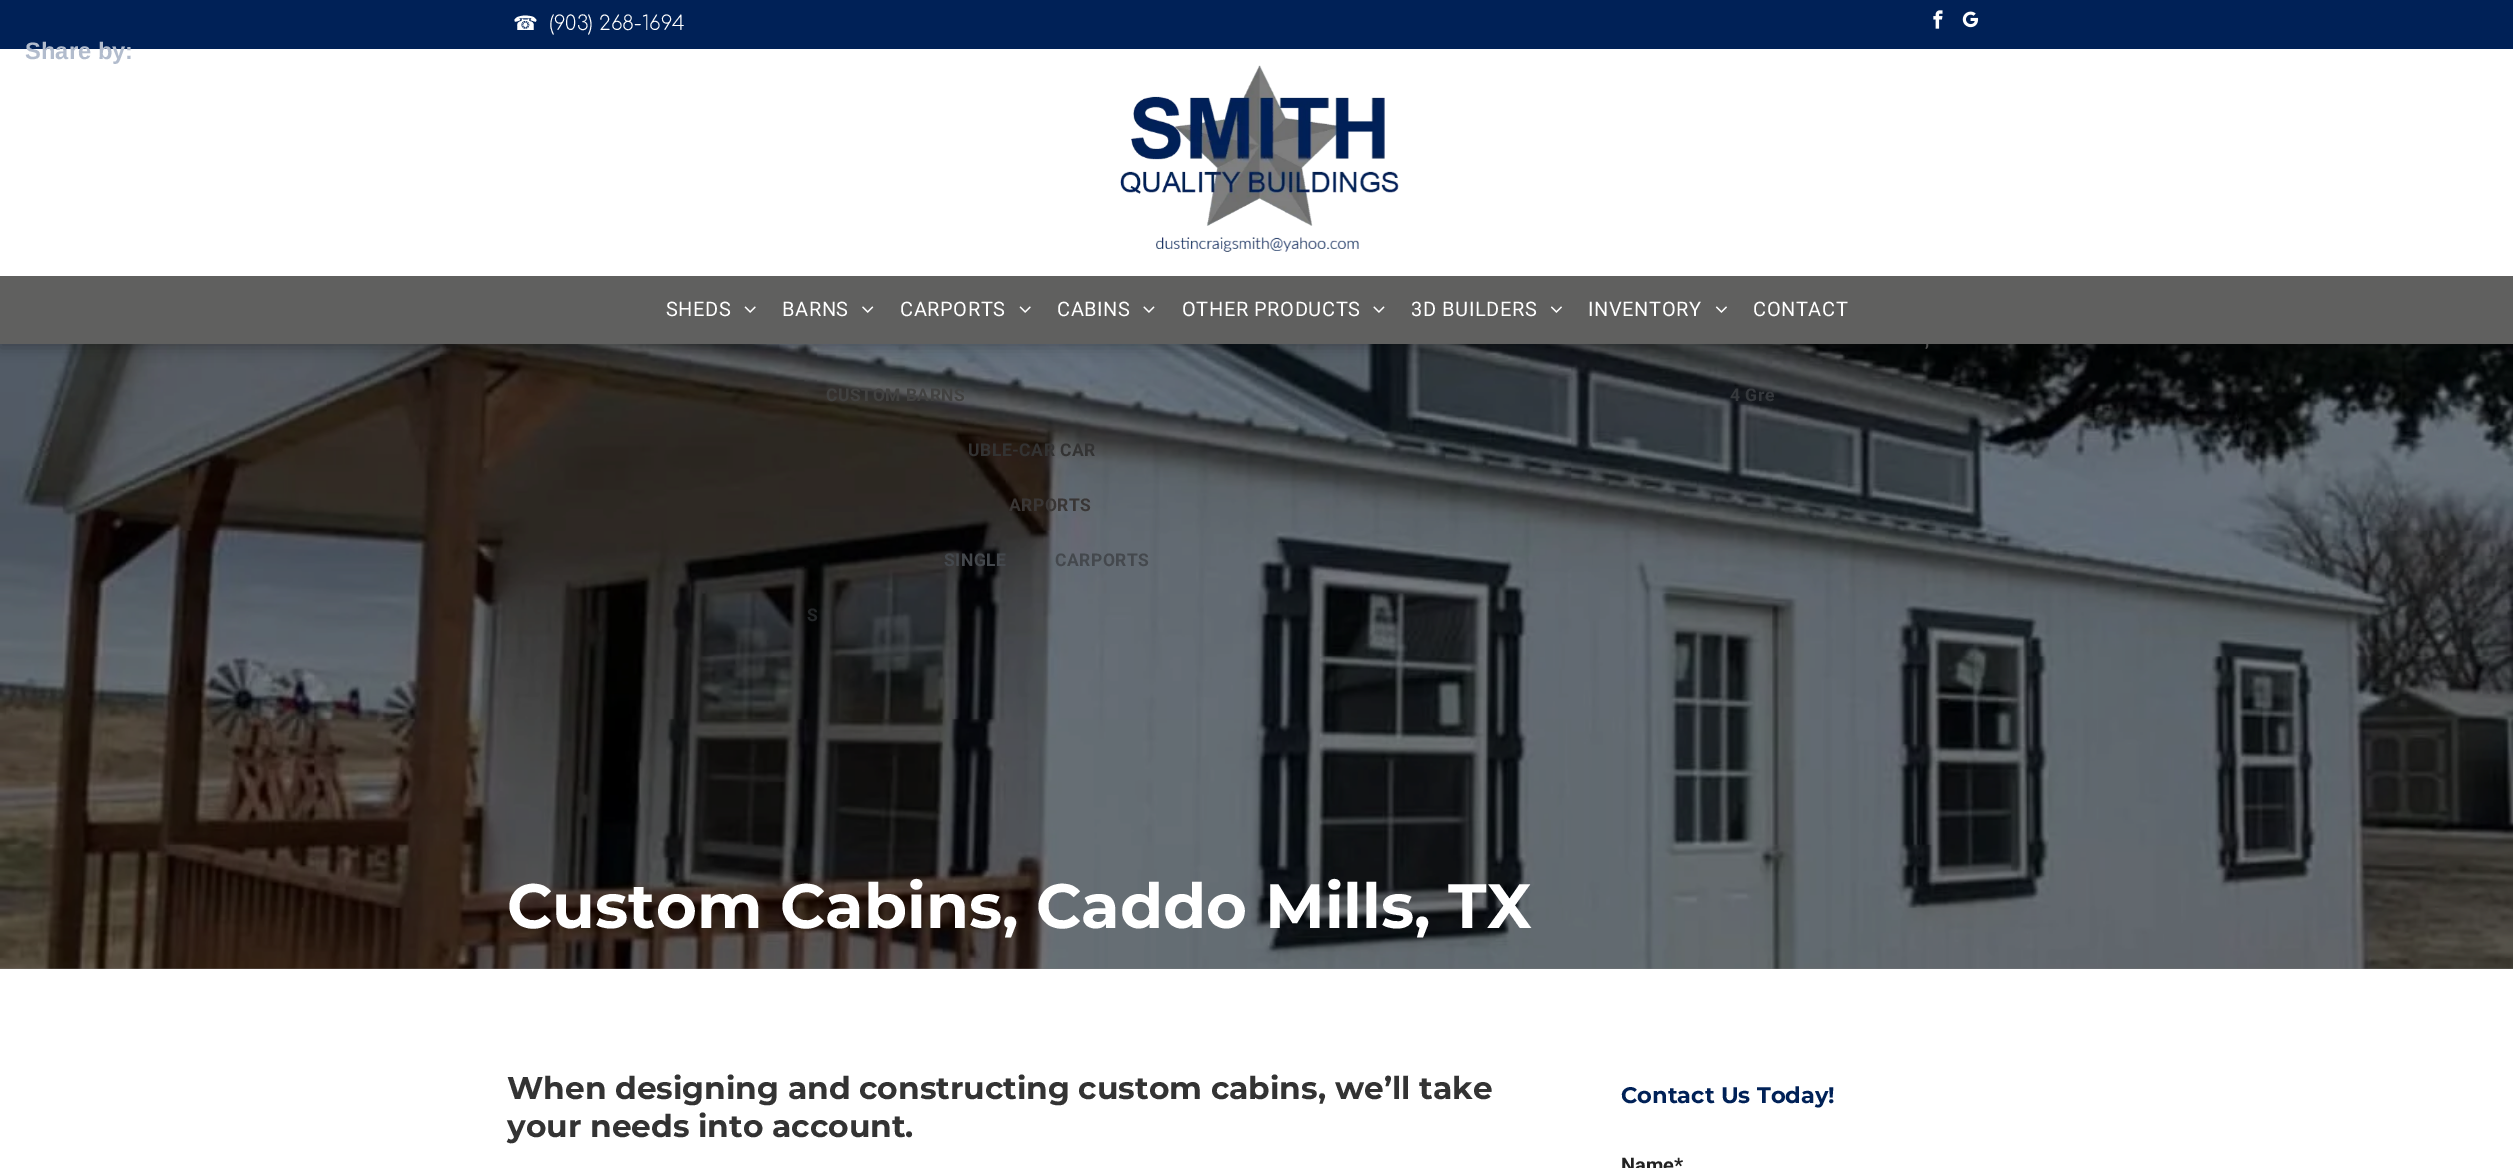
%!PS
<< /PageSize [2513 1168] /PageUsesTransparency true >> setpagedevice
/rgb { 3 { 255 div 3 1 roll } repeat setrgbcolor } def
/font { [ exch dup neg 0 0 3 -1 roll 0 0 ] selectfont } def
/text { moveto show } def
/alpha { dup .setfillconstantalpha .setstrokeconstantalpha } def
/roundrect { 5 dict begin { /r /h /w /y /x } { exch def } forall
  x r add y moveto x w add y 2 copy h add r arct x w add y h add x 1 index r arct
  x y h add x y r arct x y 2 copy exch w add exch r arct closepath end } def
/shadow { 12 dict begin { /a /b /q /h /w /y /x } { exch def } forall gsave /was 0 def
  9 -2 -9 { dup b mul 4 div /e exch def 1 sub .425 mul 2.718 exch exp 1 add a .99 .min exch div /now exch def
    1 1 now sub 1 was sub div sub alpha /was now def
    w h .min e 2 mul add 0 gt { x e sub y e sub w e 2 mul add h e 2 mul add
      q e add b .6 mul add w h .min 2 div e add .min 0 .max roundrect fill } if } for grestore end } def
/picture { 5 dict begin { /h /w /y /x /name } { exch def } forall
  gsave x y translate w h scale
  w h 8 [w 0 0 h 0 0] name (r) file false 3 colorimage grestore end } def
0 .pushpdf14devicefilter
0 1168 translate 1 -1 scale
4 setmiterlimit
255 255 255 rgb
0 0 2513 1168 rectfill
(img_08.rgb) 0 344 2513 625 picture
0 0 0 rgb
0 4 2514 344 0 7 0.25 shadow
96 96 95 rgb
0 276 2513 68 rectfill
0 33 87 rgb
0 0 2513 49 rectfill
(img_01.rgb) 1933 10 10 19 picture
(img_02.rgb) 1962 11 17 17 picture
255 255 255 rgb
0 49 2513 227 rectfill
(img_03.rgb) 1120 65 279 187 picture
(img_04.rgb) 744 306 12 7 picture
(img_05.rgb) 862 306 12 7 picture
(img_04.rgb) 1019 306 12 7 picture
(img_06.rgb) 1143 306 12 7 picture
(img_06.rgb) 1373 306 12 7 picture
(img_07.rgb) 1550 306 12 7 picture
(img_07.rgb) 1715 306 12 7 picture
/LiberationSans-Bold 23.75 font
178 188 205 rgb
(Share by:) 25 59 text
/DejaVuSans-Regular 20 font
255 255 255 rgb
(☎) 513 30 text
/Comfortaa-Light 20 font
(\(903\) 268-1694) 549 30 text
/Roboto-Regular 20 font
666 316 moveto 0.6 0 (SHEDS) ashow
/Roboto-Bold 17.5 font
36 39 41 rgb
807 621 moveto 0.5 0 (S) ashow
/Roboto-Regular 20 font
255 255 255 rgb
782 316 moveto 0.6 0 (BARNS) ashow
/Roboto-Bold 17.5 font
65 65 64 rgb
826 401 moveto 0.5 0 (CUSTOM BARNS) ashow
/Roboto-Regular 20 font
255 255 255 rgb
900 316 moveto 0.6 0 (CARPORTS) ashow
/Roboto-Bold 17.5 font
51 51 51 rgb
968 456 moveto 0.5 0 (UBLE-CAR CAR) ashow
57 54 53 rgb
1009 511 moveto 0.5 0 (ARPORTS) ashow
68 72 77 rgb
944 566 moveto 0.5 0 (SINGLE) ashow
1055 566 moveto 0.5 0 (CARPORTS) ashow
/Roboto-Regular 20 font
255 255 255 rgb
1057 316 moveto 0.6 0 (CABINS) ashow
1182 316 moveto 0.6 0 (OTHER PRODUCTS) ashow
1411 316 moveto 0.6 0 (3D BUILDERS) ashow
1588 316 moveto 0.6 0 (INVENTORY) ashow
/Roboto-Bold 17.5 font
80 80 79 rgb
1925 346 moveto 0.5 0 (,) ashow
53 56 60 rgb
1730 401 moveto 0.5 0 (4 Gre) ashow
/Roboto-Regular 20 font
255 255 255 rgb
1753 316 moveto 0.6 0 (CONTACT) ashow
/Montserrat-Bold 62.5 font
(Custom Cabins, Caddo Mills, TX) 507 928 text
/Montserrat-Bold 31.25 font
51 51 51 rgb
(When designing and constructing custom cabins, we’ll take) 507 1099 text
(your needs into account.) 507 1137 text
/Montserrat-Bold 22.5 font
0 33 87 rgb
(Contact Us Today!) 1621 1103 text
/Roboto-Bold 20 font
34 34 34 rgb
(Name*) 1621 1172 text
.poppdf14devicefilter showpage
